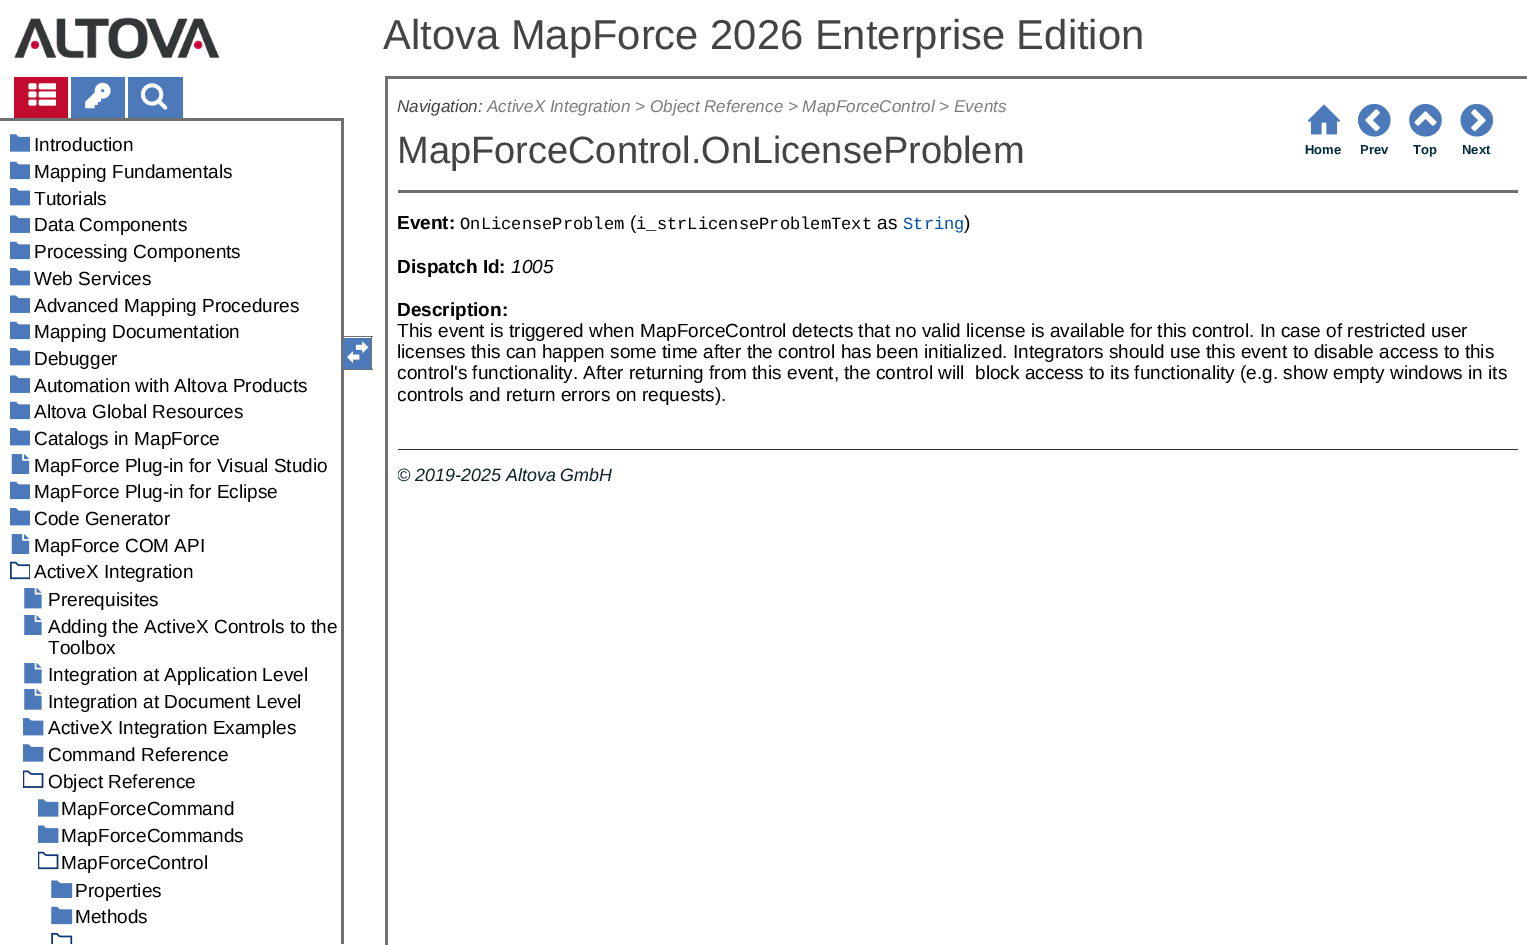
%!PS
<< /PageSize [1527 945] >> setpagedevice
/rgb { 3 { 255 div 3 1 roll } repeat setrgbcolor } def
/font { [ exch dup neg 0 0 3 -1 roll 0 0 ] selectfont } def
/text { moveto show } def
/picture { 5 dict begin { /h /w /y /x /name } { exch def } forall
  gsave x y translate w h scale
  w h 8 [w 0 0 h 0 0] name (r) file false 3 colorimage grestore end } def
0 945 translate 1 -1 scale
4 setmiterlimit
255 255 255 rgb
0 0 1527 945 rectfill
(img_01.rgb) 14 17 206 42 picture
194 11 47 rgb
14 77 54 41 rectfill
76 121 185 rgb
71 77 54 41 rectfill
128 77 55 41 rectfill
(img_02.rgb) 28 83 28 23 picture
(img_03.rgb) 85 82 26 27 picture
(img_04.rgb) 140 83 28 27 picture
112 112 112 rgb
0 118 344 3 rectfill
341 118 3 826 rectfill
(img_05.rgb) 10 134 20 18 picture
(img_06.rgb) 10 161 20 19 picture
(img_07.rgb) 10 188 20 18 picture
(img_08.rgb) 10 215 20 18 picture
(img_06.rgb) 10 241 20 19 picture
(img_07.rgb) 10 268 20 18 picture
(img_08.rgb) 10 295 20 18 picture
(img_06.rgb) 10 321 20 19 picture
(img_07.rgb) 10 348 20 18 picture
(img_08.rgb) 10 375 20 18 picture
(img_06.rgb) 10 401 20 19 picture
(img_07.rgb) 10 428 20 18 picture
(img_09.rgb) 11 454 19 20 picture
(img_06.rgb) 10 481 20 19 picture
(img_07.rgb) 10 508 20 18 picture
(img_09.rgb) 11 534 19 20 picture
(img_10.rgb) 10 561 20 19 picture
(img_11.rgb) 24 588 18 21 picture
(img_12.rgb) 24 615 18 20 picture
(img_11.rgb) 24 663 18 21 picture
(img_13.rgb) 24 689 18 21 picture
(img_14.rgb) 23 718 21 18 picture
(img_15.rgb) 23 744 21 18 picture
(img_16.rgb) 23 770 21 18 picture
(img_15.rgb) 38 799 21 18 picture
(img_17.rgb) 38 825 21 18 picture
(img_18.rgb) 38 851 21 19 picture
(img_19.rgb) 51 880 22 18 picture
(img_20.rgb) 51 906 22 19 picture
(img_21.rgb) 51 933 22 11 picture
76 121 185 rgb
343 338 28 31 rectfill
112 112 112 rgb
343 336 30 1 rectfill
371 336 1 34 rectfill
343 369 30 1 rectfill
(img_22.rgb) 347 341 22 22 picture
385 76 1142 3 rectfill
385 76 3 869 rectfill
(img_23.rgb) 1307 104 34 31 picture
(img_24.rgb) 1358 103 33 34 picture
(img_25.rgb) 1409 103 33 34 picture
(img_26.rgb) 1460 103 33 34 picture
398 190 1120 3 rectfill
51 51 51 rgb
398 449 1120 1 rectfill
/LiberationSans-Regular 41.75 font
68 68 68 rgb
(Altova MapForce 2026 Enterprise Edition) 383 49 text
/LiberationSans-Regular 19 font
0 0 0 rgb
(Introduction) 34 151 text
(Mapping Fundamentals) 34 178 text
(Tutorials) 34 205 text
(Data Components) 34 231 text
(Processing Components) 34 258 text
(Web Services) 34 285 text
(Advanced Mapping Procedures) 34 312 text
(Mapping Documentation) 34 338 text
(Debugger) 34 365 text
(Automation with Altova Products) 34 392 text
(Altova Global Resources) 34 418 text
(Catalogs in MapForce) 34 445 text
(MapForce Plug-in for Visual Studio) 34 472 text
(MapForce Plug-in for Eclipse) 34 498 text
(Code Generator) 34 525 text
(MapForce COM API) 34 552 text
(ActiveX Integration) 34 578 text
(Prerequisites) 48 606 text
(Adding the ActiveX Controls to the) 48 633 text
(Toolbox) 48 654 text
(Integration at Application Level) 48 681 text
(Integration at Document Level) 48 708 text
(ActiveX Integration Examples) 48 734 text
(Command Reference) 48 761 text
(Object Reference) 48 788 text
(MapForceCommand) 61 815 text
(MapForceCommands) 61 842 text
(MapForceControl) 61 869 text
(Properties) 75 897 text
(Methods) 75 923 text
/LiberationSans-Italic 17.1 font
68 68 68 rgb
(Navigation:) 397 112 text
124 124 124 rgb
(ActiveX Integration > Object Reference > MapForceControl > Events) 487 112 text
/LiberationSans-Regular 38 font
68 68 68 rgb
(MapForceControl.OnLicenseProblem) 397 163 text
/LiberationSans-Bold 13 font
2 43 62 rgb
(Home) 1305 154 text
(Prev) 1360 154 text
(Top) 1413 154 text
(Next) 1462 154 text
/LiberationSans-Bold 19 font
0 0 0 rgb
(Event:) 397 229 text
/LiberationMono-Regular 17.1 font
(OnLicenseProblem) 460 229 text
/LiberationSans-Regular 19 font
(\() 630 229 text
/LiberationMono-Regular 17.1 font
(i_strLicenseProblemText) 636 229 text
/LiberationSans-Regular 19 font
(as) 877 229 text
/LiberationMono-Regular 17.1 font
0 82 164 rgb
(String) 903 229 text
/LiberationSans-Regular 19 font
0 0 0 rgb
(\)) 964 229 text
/LiberationSans-Bold 19 font
(Dispatch Id:) 397 273 text
/LiberationSans-Italic 19 font
(1005) 511 273 text
/LiberationSans-Bold 19 font
(Description:) 397 316 text
/LiberationSans-Regular 19 font
(This event is triggered when MapForceControl detects that no valid license is available for this control. In case of restricted user) 397 337 text
(licenses this can happen some time after the control has been initialized. Integrators should use this event to disable access to this) 397 358 text
gsave
398 193 1120 315 rectclip
(control's functionality. After returning from this event, the control will  block access to its functionality \(e.g. show empty windows in its) 397 379 text
(controls and return errors on requests\).) 397 401 text
/LiberationSans-Italic 17.9 font
10 34 41 rgb
(© 2019-2025 Altova GmbH) 397 481 text
grestore
showpage
